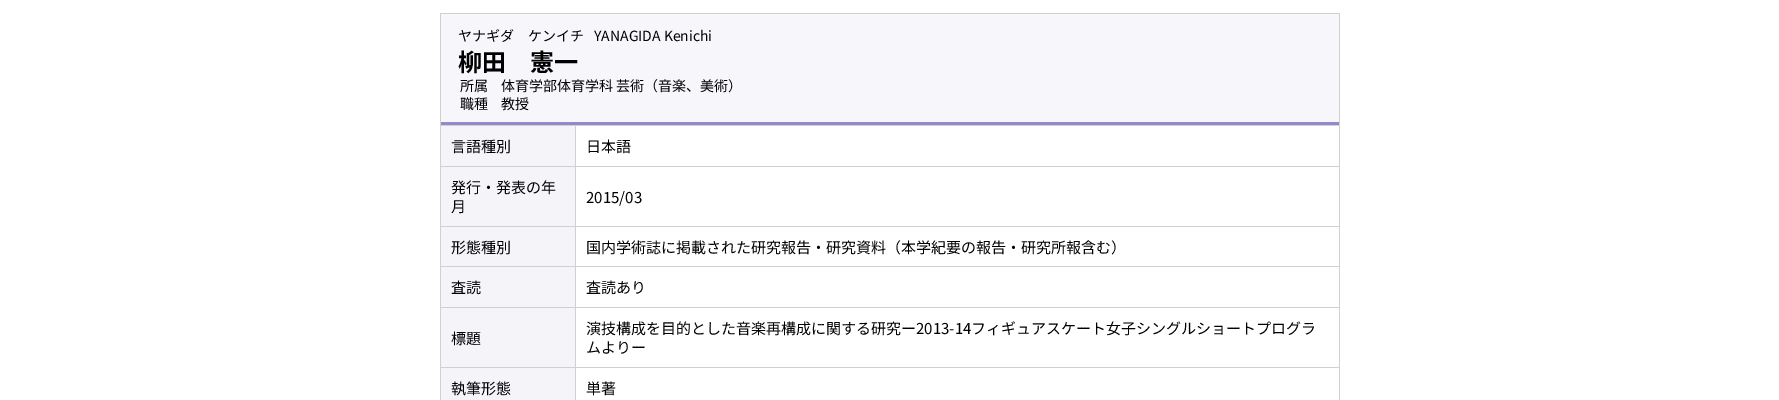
%!PS
<< /PageSize [1779 400] >> setpagedevice
/rgb { 3 { 255 div 3 1 roll } repeat setrgbcolor } def
/font { [ exch dup neg 0 0 3 -1 roll 0 0 ] selectfont } def
/text { moveto show } def
0 400 translate 1 -1 scale
4 setmiterlimit
255 255 255 rgb
0 0 1779 400 rectfill
208 208 208 rgb
440 13 900 387 rectfill
247 246 251 rgb
441 14 898 108 rectfill
150 135 206 rgb
441 122 898 3 rectfill
245 244 249 rgb
441 126 134 40 rectfill
255 255 255 rgb
576 126 763 40 rectfill
245 244 249 rgb
441 167 134 59 rectfill
255 255 255 rgb
576 167 763 59 rectfill
245 244 249 rgb
441 227 134 39 rectfill
255 255 255 rgb
576 227 763 39 rectfill
245 244 249 rgb
441 267 134 40 rectfill
255 255 255 rgb
576 267 763 40 rectfill
245 244 249 rgb
441 308 134 59 rectfill
255 255 255 rgb
576 308 763 59 rectfill
245 244 249 rgb
441 368 134 32 rectfill
255 255 255 rgb
576 368 763 32 rectfill
/NotoSansJP-Regular 14 font
0 0 0 rgb
(ヤナギダ　ケンイチ) 458 41 text
(YANAGIDA Kenichi) 594 41 text
/NotoSansJP-Bold 24 font
(柳田　憲一) 458 71 text
/NotoSansJP-Regular 14 font
(所属) 460 91 text
(体育学部体育学科 芸術（音楽、美術）) 501 91 text
(職種) 460 109 text
(教授) 501 109 text
/NotoSansJP-Regular 15 font
(言語種別) 451 152 text
(日本語) 586 152 text
(発行・発表の年) 451 193 text
(月) 451 212 text
(2015/03) 586 203 text
(形態種別) 451 253 text
(国内学術誌に掲載された研究報告・研究資料（本学紀要の報告・研究所報含む）) 586 253 text
(査読) 451 293 text
(査読あり) 586 293 text
(標題) 451 344 text
(演技構成を目的とした音楽再構成に関する研究ー2013-14フィギュアスケート女子シングルショートプログラ) 586 334 text
(ムよりー) 586 353 text
(執筆形態) 451 394 text
(単著) 586 394 text
showpage
